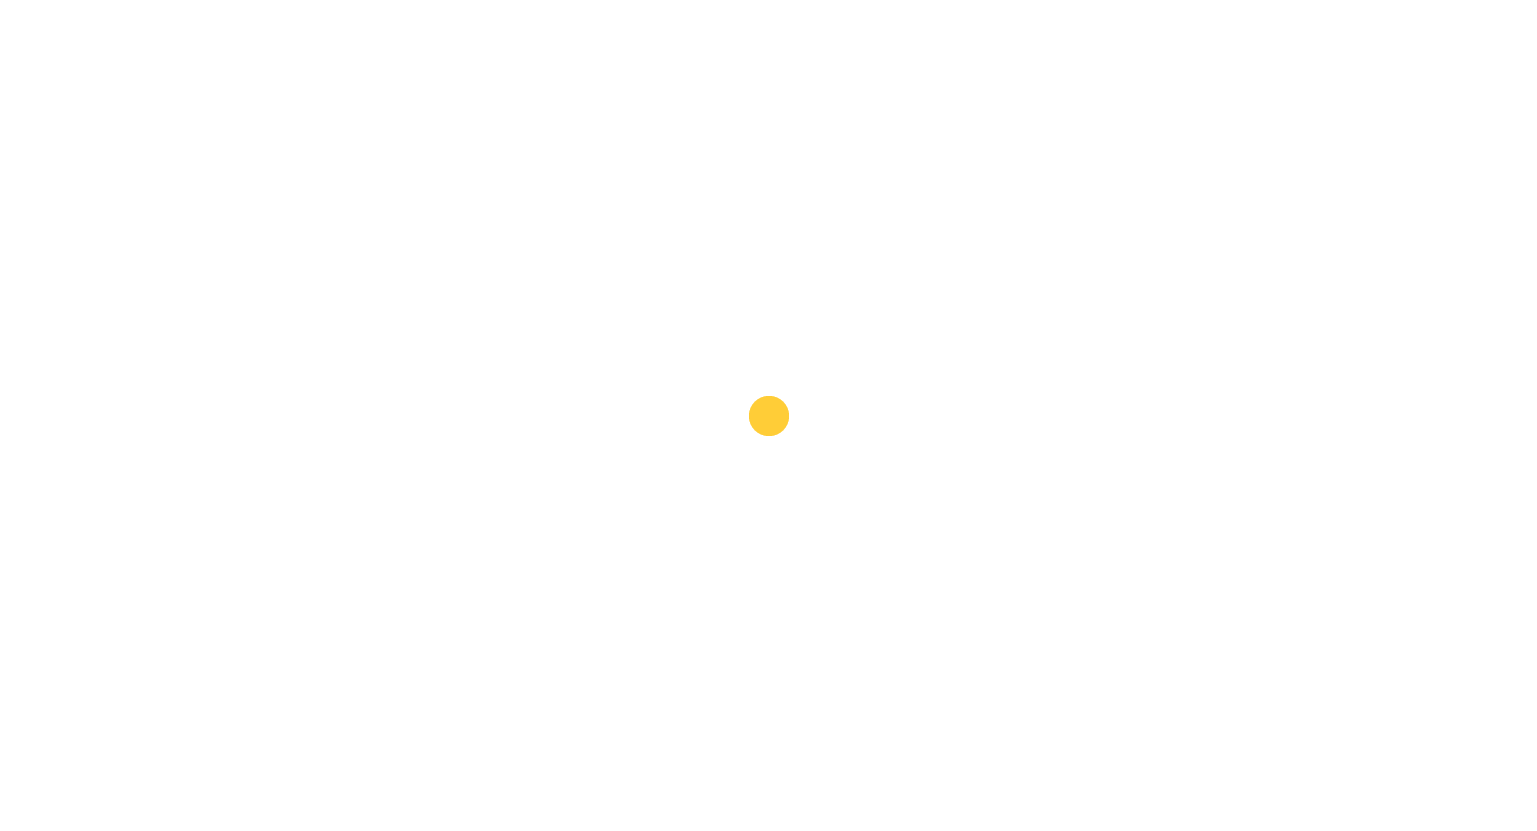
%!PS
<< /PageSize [1537 831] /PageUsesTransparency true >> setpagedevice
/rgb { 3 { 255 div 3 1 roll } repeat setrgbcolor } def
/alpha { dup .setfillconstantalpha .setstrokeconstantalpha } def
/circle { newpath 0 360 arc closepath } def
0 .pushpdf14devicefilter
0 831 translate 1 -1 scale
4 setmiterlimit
255 255 255 rgb
0 0 1537 831 rectfill
255 219 112 rgb
769 416 20 circle fill
0.6 alpha
255 195 17 rgb
769 416 20 circle fill
.poppdf14devicefilter showpage
